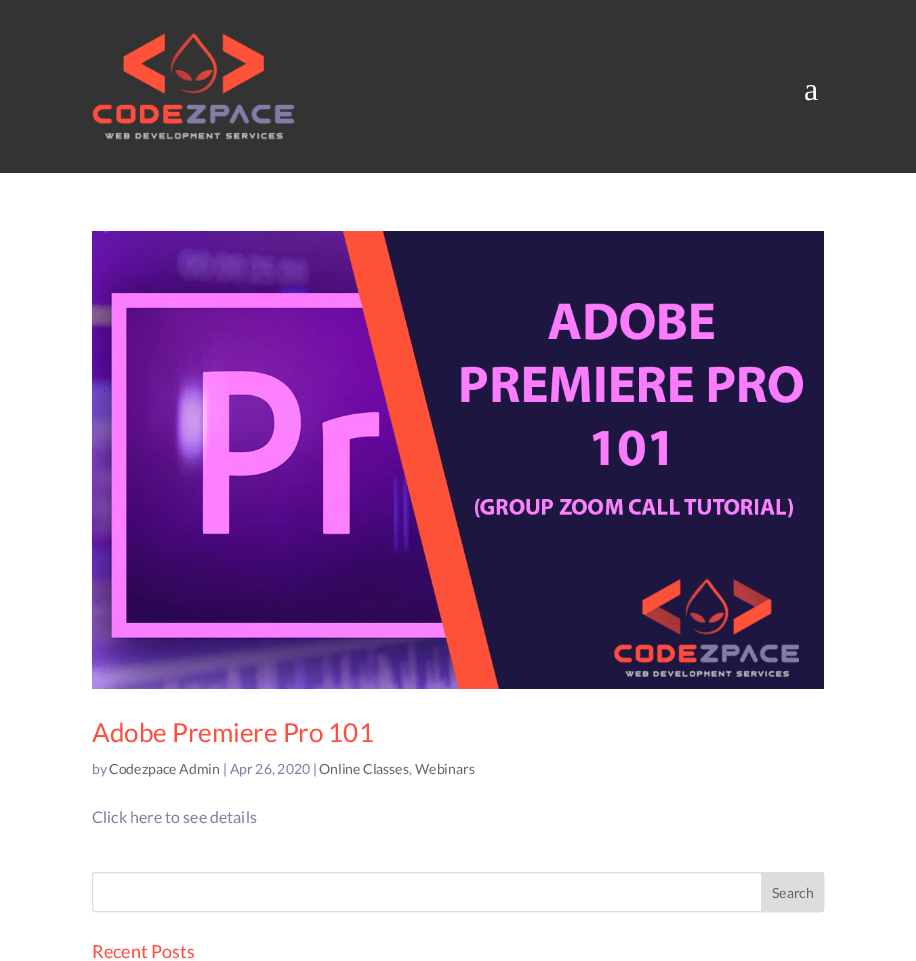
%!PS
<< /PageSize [916 961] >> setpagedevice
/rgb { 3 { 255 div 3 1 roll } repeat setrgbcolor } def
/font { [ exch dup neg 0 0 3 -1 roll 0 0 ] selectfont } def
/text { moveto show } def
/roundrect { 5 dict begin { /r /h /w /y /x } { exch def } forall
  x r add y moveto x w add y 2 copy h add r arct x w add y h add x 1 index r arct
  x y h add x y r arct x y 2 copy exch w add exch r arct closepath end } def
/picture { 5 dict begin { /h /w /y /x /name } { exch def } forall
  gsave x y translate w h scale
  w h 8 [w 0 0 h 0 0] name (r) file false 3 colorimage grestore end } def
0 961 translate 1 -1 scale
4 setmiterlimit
255 255 255 rgb
0 0 916 961 rectfill
51 51 51 rgb
0 0 916 173 rectfill
(img_01.rgb) 92 33 203 107 picture
(img_02.rgb) 92 231 732 458 picture
221 221 221 rgb
92.5 872.5 731 39 2.5 roundrect stroke
761.5 872.5 moveto 59.5 0 rlineto 1.5 0 2.5 1 2.5 2.5 rcurveto 0 34 rlineto 0 1.5 -1 2.5 -2.5 2.5 rcurveto -59.5 0 rlineto closepath gsave fill grestore
stroke
/LiberationSerif-Regular 32 font
255 255 255 rgb
(a) 804 100 text
/Lato-Regular 26 font
255 77 63 rgb
(Adobe Premiere Pro 101) 92 742 text
/Lato-Regular 14 font
130 125 166 rgb
(by) 92 774 text
102 102 102 rgb
(Codezpace Admin) 109 774 text
130 125 166 rgb
(| Apr 26, 2020 |) 223 774 text
102 102 102 rgb
(Online Classes) 319 774 text
130 125 166 rgb
(,) 409 774 text
102 102 102 rgb
(Webinars) 415 774 text
/Lato-Regular 16 font
130 125 166 rgb
(Click here to see details) 92 823 text
/Lato-Regular 14 font
102 102 102 rgb
(Search) 772 898 text
/Lato-Regular 18 font
255 77 63 rgb
(Recent Posts) 92 958 text
showpage
